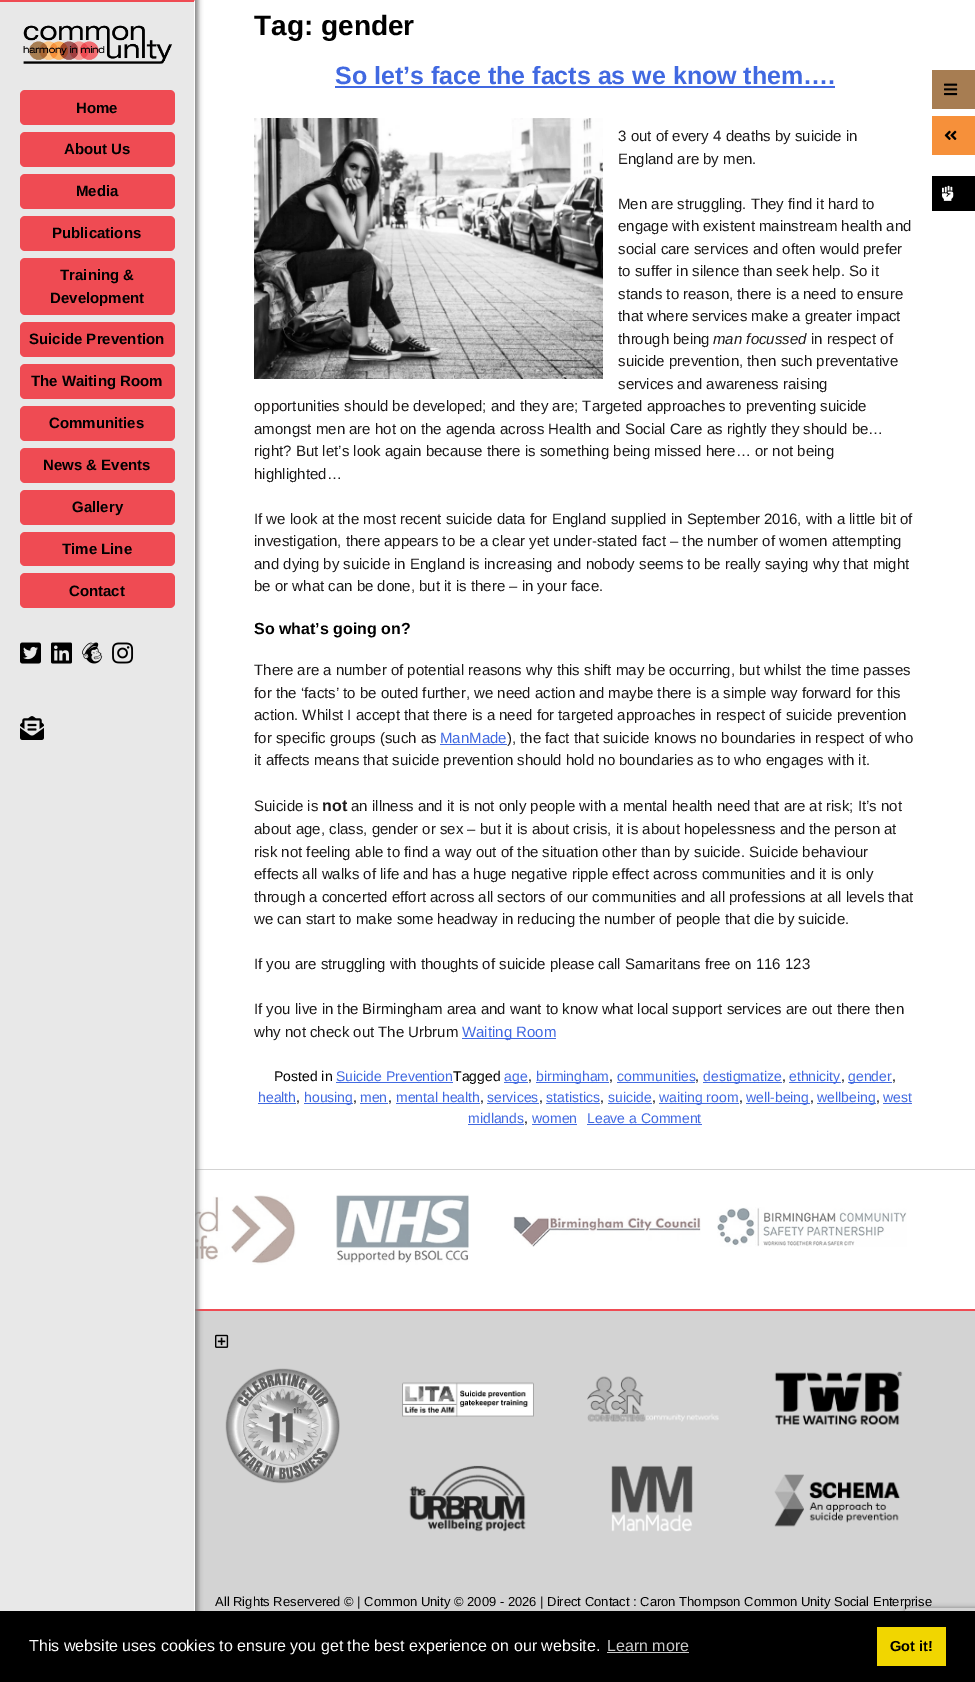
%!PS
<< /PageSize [975 1682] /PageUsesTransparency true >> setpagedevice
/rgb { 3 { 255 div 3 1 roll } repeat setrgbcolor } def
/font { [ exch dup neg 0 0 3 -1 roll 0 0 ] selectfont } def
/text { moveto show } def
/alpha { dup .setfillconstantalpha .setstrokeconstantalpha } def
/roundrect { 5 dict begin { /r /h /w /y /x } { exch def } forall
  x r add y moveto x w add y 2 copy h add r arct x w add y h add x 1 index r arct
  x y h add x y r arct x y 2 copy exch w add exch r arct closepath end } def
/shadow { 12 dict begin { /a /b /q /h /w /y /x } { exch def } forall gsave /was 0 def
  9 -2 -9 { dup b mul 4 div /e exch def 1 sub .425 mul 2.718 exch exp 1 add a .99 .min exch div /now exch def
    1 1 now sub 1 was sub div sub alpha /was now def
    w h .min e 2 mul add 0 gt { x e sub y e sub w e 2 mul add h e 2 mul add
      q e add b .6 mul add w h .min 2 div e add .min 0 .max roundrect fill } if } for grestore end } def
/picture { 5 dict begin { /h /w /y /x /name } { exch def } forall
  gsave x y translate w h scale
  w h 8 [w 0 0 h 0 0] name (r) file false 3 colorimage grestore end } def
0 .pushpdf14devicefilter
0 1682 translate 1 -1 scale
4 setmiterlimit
255 255 255 rgb
0 0 975 1682 rectfill
65 105 225 rgb
335 86 500 2 rectfill
(img_01.rgb) 254 118 349 261 picture
440 744 67 1 rectfill
462 1038 94 1 rectfill
336 1082 117 1 rectfill
504 1082 24 1 rectfill
536 1082 73 1 rectfill
617 1082 78 1 rectfill
703 1082 79 1 rectfill
789 1082 52 1 rectfill
848 1082 44 1 rectfill
258 1103 38 1 rectfill
304 1103 49 1 rectfill
360 1103 28 1 rectfill
396 1103 84 1 rectfill
487 1103 52 1 rectfill
546 1103 54 1 rectfill
608 1103 44 1 rectfill
659 1103 80 1 rectfill
746 1103 64 1 rectfill
817 1103 59 1 rectfill
883 1103 29 1 rectfill
468 1124 56 1 rectfill
532 1124 45 1 rectfill
587 1124 115 1 rectfill
211 211 211 rgb
195 1169 780 1 rectfill
(img_02.rgb) 195 1195 101 70 picture
(img_03.rgb) 336 1194 133 71 picture
(img_04.rgb) 513 1216 188 31 picture
(img_05.rgb) 717 1207 190 40 picture
167 125 82 rgb
932 70 43 39 rectfill
(img_06.rgb) 944 83 14 13 picture
211 211 211 rgb
195 1311 780 300 rectfill
239 75 83 rgb
195 1309 780 2 rectfill
128 128 128 rgb
3 -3 195 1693 0 2.5 1 shadow
232 232 232 rgb
0 0 195 1611 rectfill
239 75 83 rgb
0 0 moveto 195 0 rlineto -1 2 rlineto -194 0 rlineto closepath fill
255 255 255 rgb
195 0 moveto 0 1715 rlineto -1 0 rlineto 0 -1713 rlineto closepath fill
(img_07.rgb) 23 25 150 39 picture
239 75 83 rgb
20 90 155 35 5 roundrect fill
20 132 155 35 5 roundrect fill
20 174 155 35 5 roundrect fill
20 216 155 35 5 roundrect fill
20 258 155 57 5 roundrect fill
20 322 155 35 5 roundrect fill
20 364 155 35 5 roundrect fill
20 406 155 35 5 roundrect fill
20 448 155 35 5 roundrect fill
20 490 155 35 5 roundrect fill
20 532 155 34 5 roundrect fill
20 573 155 35 5 roundrect fill
(img_08.rgb) 20 642 21 22 picture
(img_09.rgb) 51 642 21 22 picture
(img_10.rgb) 82 642 21 22 picture
(img_11.rgb) 112 642 22 22 picture
(img_12.rgb) 20 716 24 24 picture
246 144 58 rgb
932 116 43 39 rectfill
(img_13.rgb) 944 130 13 10 picture
0 0 0 rgb
932 176 43 35 rectfill
(img_14.rgb) 942 185 12 16 picture
(img_15.rgb) 215 1334 14 14 picture
(img_16.rgb) 225 1368 115 116 picture
(img_17.rgb) 402 1382 132 35 picture
(img_18.rgb) 409 1465 117 67 picture
(img_19.rgb) 587 1376 132 46 picture
(img_20.rgb) 611 1465 82 67 picture
(img_21.rgb) 774 1371 129 54 picture
(img_22.rgb) 774 1474 127 53 picture
gsave
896 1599 moveto 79 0 rlineto 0 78 rlineto -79 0 rlineto closepath 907 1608 moveto 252 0 rlineto 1 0 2 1 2 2 rcurveto 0 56 rlineto 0 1 -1 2 -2 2 rcurveto -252 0 rlineto -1 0 -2 -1 -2 -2 rcurveto 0 -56 rlineto 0 -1 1 -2 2 -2 rcurveto closepath eoclip newpath
128 128 128 rgb
905 1608 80 60 2 2.5 1 shadow
grestore
0 1611 975 71 rectfill
204 204 204 rgb
607 1652 82 1 rectfill
241 214 0 rgb
877 1627 69 39 rectfill
/LiberationSans-Bold 28 font
0 0 0 rgb
(Tag: gender) 254 35 text
/LiberationSans-Bold 25 font
65 105 225 rgb
(So let’s face the facts as we know them….) 335 84 text
/LiberationSans-Regular 15 font
28 26 26 rgb
(3 out of every 4 deaths by suicide in) 618 141 text
(England are by men.) 618 164 text
(Men are struggling. They find it hard to) 618 209 text
(engage with existent mainstream health and) 618 231 text
(social care services and often would prefer) 618 254 text
(to suffer in silence than seek help. So it) 618 276 text
(stands to reason, there is a need to ensure) 618 299 text
(that where services make a greater impact) 618 321 text
(through being) 618 344 text
/LiberationSans-Italic 15 font
(man focussed) 713 344 text
/LiberationSans-Regular 15 font
(in respect of) 811 344 text
(suicide prevention, then such preventative) 618 366 text
(services and awareness raising) 618 389 text
(opportunities should be developed; and they are; Targeted approaches to preventing suicide) 254 411 text
(amongst men are hot on the agenda across Health and Social Care as rightly they should be…) 254 434 text
(right? But let’s look again because there is something being missed here… or not being) 254 456 text
(highlighted…) 254 479 text
(If we look at the most recent suicide data for England supplied in September 2016, with a little bit of) 254 524 text
(investigation, there appears to be a clear yet under-stated fact – the number of women attempting) 254 546 text
(and dying by suicide in England is increasing and nobody seems to be really saying why that might) 254 569 text
(be or what can be done, but it is there – in your face.) 254 591 text
/LiberationSans-Bold 16 font
0 0 0 rgb
(So what’s going on?) 254 634 text
/LiberationSans-Regular 15 font
28 26 26 rgb
(There are a number of potential reasons why this shift may be occurring, but whilst the time passes) 254 675 text
(for the ‘facts’ to be outed further, we need action and maybe there is a simple way forward for this) 254 698 text
(action. Whilst I accept that there is a need for targeted approaches in respect of suicide prevention) 254 720 text
(for specific groups \(such as) 254 743 text
65 105 225 rgb
(ManMade) 440 743 text
28 26 26 rgb
(\), the fact that suicide knows no boundaries in respect of who) 507 743 text
(it affects means that suicide prevention should hold no boundaries as to who engages with it.) 254 765 text
(Suicide is) 254 811 text
/LiberationSans-Bold 16 font
(not) 322 811 text
/LiberationSans-Regular 15 font
(an illness and it is not only people with a mental health need that are at risk; It’s not) 351 811 text
(about age, class, gender or sex – but it is about crisis, it is about hopelessness and the person at) 254 834 text
(risk not feeling able to find a way out of the situation other than by suicide. Suicide behaviour) 254 857 text
(effects all walks of life and has a huge negative ripple effect across communities and it is only) 254 879 text
(through a concerted effort across all sectors of our communities and all professions at all levels that) 254 902 text
(we can start to make some headway in reducing the number of people that die by suicide.) 254 924 text
(If you are struggling with thoughts of suicide please call Samaritans free on 116 123) 254 969 text
(If you live in the Birmingham area and want to know what local support services are out there then) 254 1014 text
(why not check out The Urbrum) 254 1037 text
65 105 225 rgb
(Waiting Room) 462 1037 text
/LiberationSans-Regular 14 font
0 0 0 rgb
(Posted in) 274 1081 text
65 105 225 rgb
(Suicide Prevention) 336 1081 text
0 0 0 rgb
(Tagged) 453 1081 text
65 105 225 rgb
(age) 504 1081 text
0 0 0 rgb
(,) 528 1081 text
65 105 225 rgb
(birmingham) 536 1081 text
0 0 0 rgb
(,) 609 1081 text
65 105 225 rgb
(communities) 617 1081 text
0 0 0 rgb
(,) 695 1081 text
65 105 225 rgb
(destigmatize) 703 1081 text
0 0 0 rgb
(,) 782 1081 text
65 105 225 rgb
(ethnicity) 789 1081 text
0 0 0 rgb
(,) 841 1081 text
65 105 225 rgb
(gender) 848 1081 text
0 0 0 rgb
(,) 892 1081 text
65 105 225 rgb
(health) 258 1102 text
0 0 0 rgb
(,) 296 1102 text
65 105 225 rgb
(housing) 304 1102 text
0 0 0 rgb
(,) 353 1102 text
65 105 225 rgb
(men) 360 1102 text
0 0 0 rgb
(,) 388 1102 text
65 105 225 rgb
(mental health) 396 1102 text
0 0 0 rgb
(,) 480 1102 text
65 105 225 rgb
(services) 487 1102 text
0 0 0 rgb
(,) 539 1102 text
65 105 225 rgb
(statistics) 546 1102 text
0 0 0 rgb
(,) 600 1102 text
65 105 225 rgb
(suicide) 608 1102 text
0 0 0 rgb
(,) 652 1102 text
65 105 225 rgb
(waiting room) 659 1102 text
0 0 0 rgb
(,) 739 1102 text
65 105 225 rgb
(well-being) 746 1102 text
0 0 0 rgb
(,) 810 1102 text
65 105 225 rgb
(wellbeing) 817 1102 text
0 0 0 rgb
(,) 876 1102 text
65 105 225 rgb
(west) 883 1102 text
(midlands) 468 1123 text
0 0 0 rgb
(,) 524 1123 text
65 105 225 rgb
(women) 532 1123 text
(Leave a Comment) 587 1123 text
/LiberationSans-Bold 15 font
0 0 0 rgb
(Home) 76 113 text
(About Us) 64 154 text
(Media) 76 196 text
(Publications) 52 238 text
(Training &) 60 280 text
(Development) 50 303 text
(Suicide Prevention) 29 344 text
(The Waiting Room) 31 386 text
(Communities) 49 428 text
(News & Events) 43 470 text
(Gallery) 72 512 text
(Time Line) 62 554 text
(Contact) 69 596 text
/LiberationSans-Regular 13 font
(All Rights Reservered © | Common Unity © 2009 - 2026 | Direct Contact : Caron Thompson Common Unity Social Enterprise) 215 1606 text
/LiberationSans-Regular 16 font
255 255 255 rgb
(This website uses cookies to ensure you get the best experience on our website.) 29 1651 text
204 204 204 rgb
(Learn more) 607 1651 text
/LiberationSans-Bold 14.5 font
0 0 0 rgb
(Got it!) 890 1651 text
.poppdf14devicefilter showpage
